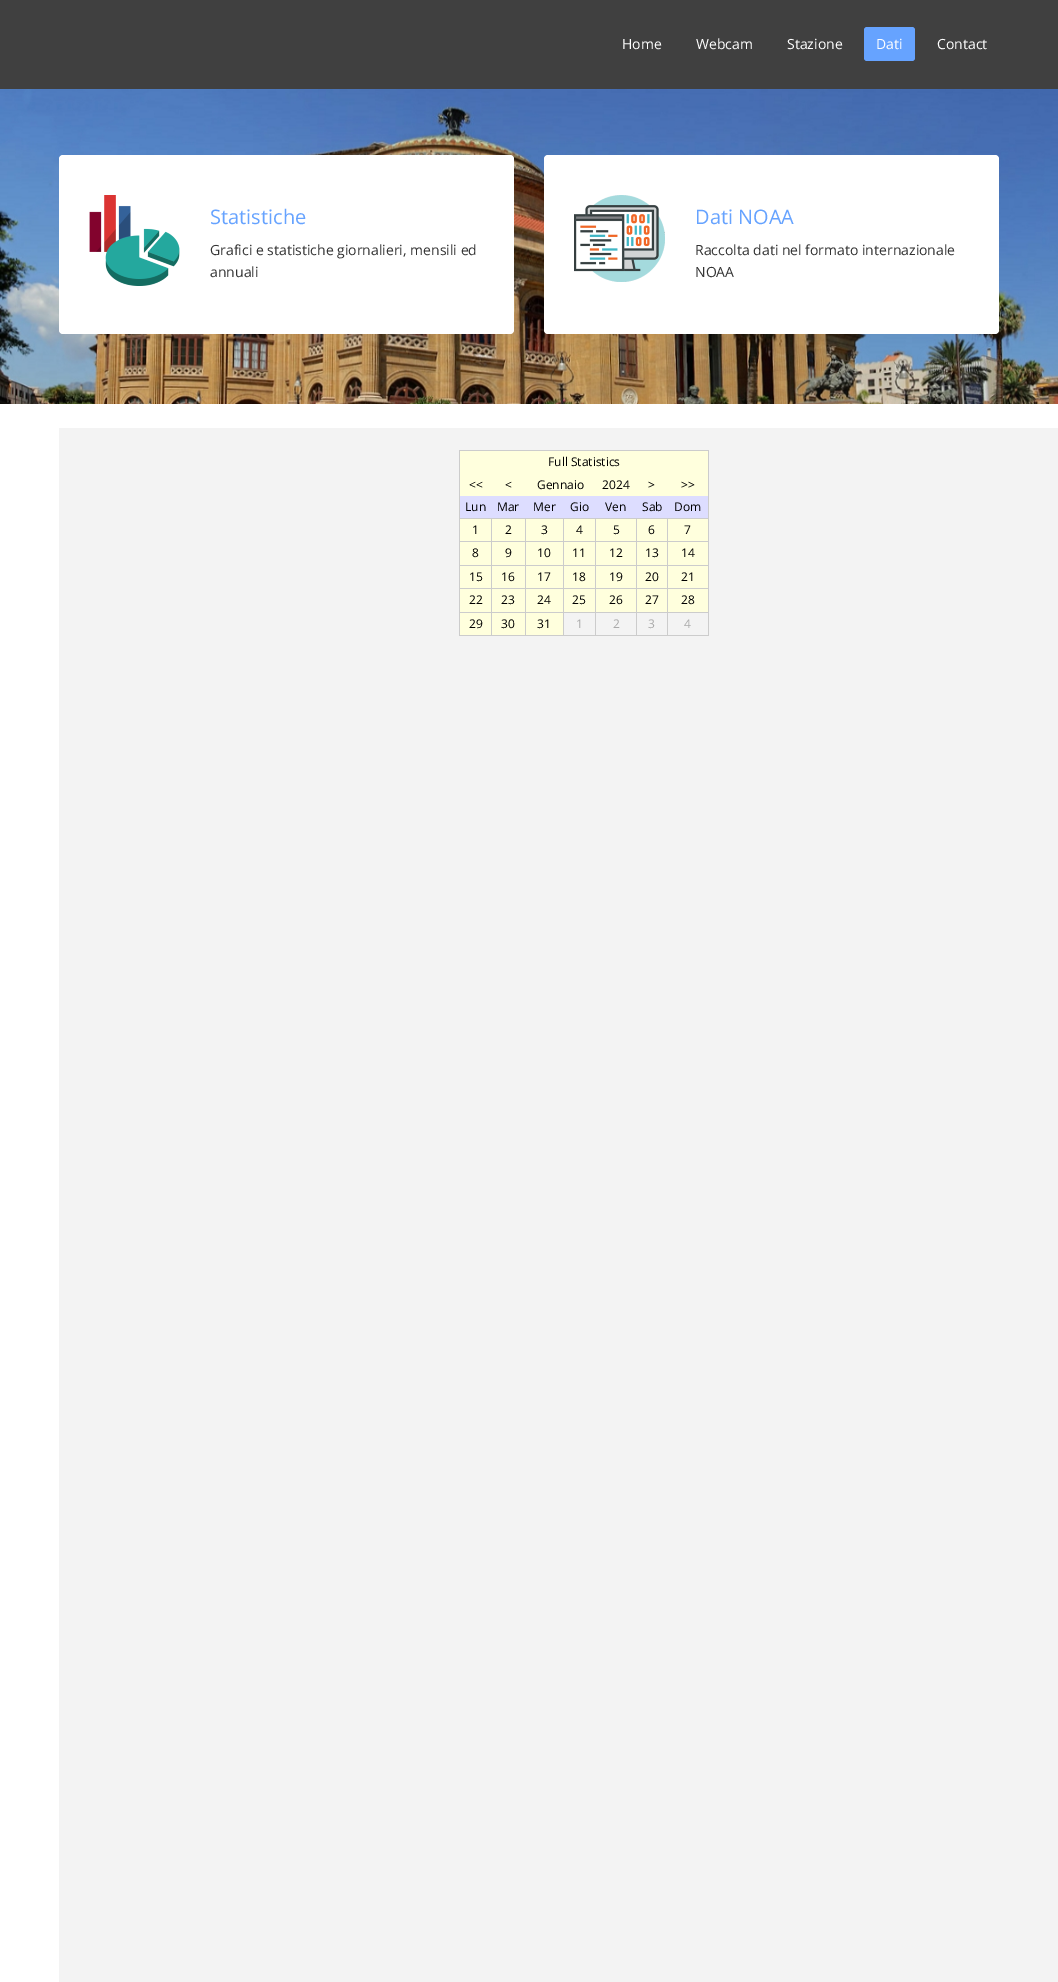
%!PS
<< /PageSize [1058 1982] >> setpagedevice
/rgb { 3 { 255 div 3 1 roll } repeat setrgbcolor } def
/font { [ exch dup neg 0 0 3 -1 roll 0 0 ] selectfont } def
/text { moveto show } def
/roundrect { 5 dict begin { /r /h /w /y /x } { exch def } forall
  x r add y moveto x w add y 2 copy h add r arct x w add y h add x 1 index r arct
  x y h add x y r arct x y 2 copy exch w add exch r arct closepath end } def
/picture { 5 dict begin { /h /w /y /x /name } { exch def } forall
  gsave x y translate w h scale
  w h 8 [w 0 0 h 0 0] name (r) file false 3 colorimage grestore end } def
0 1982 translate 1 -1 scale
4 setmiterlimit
255 255 255 rgb
0 0 1058 1982 rectfill
64 64 64 rgb
0 0 1058 89 rectfill
102 163 255 rgb
864 27 51 34 3 roundrect fill
(img_01.rgb) 0 89 1058 315 picture
255 255 255 rgb
59 155 455 179 4 roundrect fill
(img_02.rgb) 89 195 91 91 picture
544 155 455 179 4 roundrect fill
(img_03.rgb) 574 195 91 87 picture
243 243 243 rgb
59 428 999 1554 rectfill
204 204 204 rgb
459 450 250 1 rectfill
708 450 1 186 rectfill
459 635 250 1 rectfill
459 450 1 186 rectfill
255 255 221 rgb
460 451 248 23 rectfill
460 474 248 22 rectfill
221 221 255 rgb
460 496 248 22 rectfill
204 204 204 rgb
667 518 42 1 rectfill
667 541 42 1 rectfill
667 565 42 1 rectfill
667 588 42 1 rectfill
667 612 42 1 rectfill
667 612 1 24 rectfill
636 612 32 1 rectfill
667 588 1 25 rectfill
636 588 32 1 rectfill
667 565 1 24 rectfill
636 565 32 1 rectfill
667 541 1 25 rectfill
636 541 32 1 rectfill
667 518 1 24 rectfill
636 518 32 1 rectfill
636 612 1 24 rectfill
595 612 42 1 rectfill
636 588 1 25 rectfill
595 588 42 1 rectfill
636 565 1 24 rectfill
595 565 42 1 rectfill
636 541 1 25 rectfill
595 541 42 1 rectfill
636 518 1 24 rectfill
595 518 42 1 rectfill
595 612 1 24 rectfill
563 612 33 1 rectfill
595 588 1 25 rectfill
563 588 33 1 rectfill
595 565 1 24 rectfill
563 565 33 1 rectfill
595 541 1 25 rectfill
563 541 33 1 rectfill
595 518 1 24 rectfill
563 518 33 1 rectfill
563 612 1 24 rectfill
525 612 39 1 rectfill
563 588 1 25 rectfill
525 588 39 1 rectfill
563 565 1 24 rectfill
525 565 39 1 rectfill
563 541 1 25 rectfill
525 541 39 1 rectfill
563 518 1 24 rectfill
525 518 39 1 rectfill
525 612 1 24 rectfill
491 612 35 1 rectfill
525 588 1 25 rectfill
491 588 35 1 rectfill
525 565 1 24 rectfill
491 565 35 1 rectfill
525 541 1 25 rectfill
491 541 35 1 rectfill
525 518 1 24 rectfill
491 518 35 1 rectfill
491 612 1 24 rectfill
459 612 33 1 rectfill
491 588 1 25 rectfill
459 588 33 1 rectfill
491 565 1 24 rectfill
459 565 33 1 rectfill
491 541 1 25 rectfill
459 541 33 1 rectfill
491 518 1 24 rectfill
459 518 33 1 rectfill
255 255 221 rgb
460 519 31 22 rectfill
492 519 33 22 rectfill
526 519 37 22 rectfill
564 519 31 22 rectfill
596 519 40 22 rectfill
637 519 30 22 rectfill
668 519 40 22 rectfill
460 542 31 23 rectfill
492 542 33 23 rectfill
526 542 37 23 rectfill
564 542 31 23 rectfill
596 542 40 23 rectfill
637 542 30 23 rectfill
668 542 40 23 rectfill
460 566 31 22 rectfill
492 566 33 22 rectfill
526 566 37 22 rectfill
564 566 31 22 rectfill
596 566 40 22 rectfill
637 566 30 22 rectfill
668 566 40 22 rectfill
460 589 31 23 rectfill
492 589 33 23 rectfill
526 589 37 23 rectfill
564 589 31 23 rectfill
596 589 40 23 rectfill
637 589 30 23 rectfill
668 589 40 23 rectfill
460 613 31 22 rectfill
492 613 33 22 rectfill
526 613 37 22 rectfill
/OpenSans-Regular 14 font
255 255 255 rgb
(Home) 622 49 text
(Webcam) 696 49 text
(Stazione) 787 49 text
(Dati) 876 49 text
(Contact) 937 49 text
/OpenSans-Regular 20 font
102 163 255 rgb
(Statistiche) 210 224 text
/OpenSans-Regular 14 font
51 51 51 rgb
(Grafici e statistiche giornalieri, mensili ed) 210 255 text
(annuali) 210 277 text
/OpenSans-Regular 20 font
102 163 255 rgb
(Dati NOAA) 695 224 text
/OpenSans-Regular 14 font
51 51 51 rgb
(Raccolta dati nel formato internazionale) 695 255 text
(NOAA) 695 277 text
/OpenSans-Regular 12 font
0 0 0 rgb
(Full Statistics) 548 466 text
(<<) 469 489 text
(<) 505 489 text
(Gennaio) 537 489 text
(2024) 602 489 text
(>) 648 489 text
(>>) 681 489 text
(Lun) 465 511 text
(Mar) 497 511 text
(Mer) 533 511 text
(Gio) 570 511 text
(Ven) 605 511 text
(Sab) 642 511 text
(Dom) 674 511 text
(1) 472 534 text
(2) 505 534 text
(3) 541 534 text
(4) 576 534 text
(5) 613 534 text
(6) 648 534 text
(7) 684 534 text
(8) 472 557 text
(9) 505 557 text
(10) 537 557 text
(11) 572 557 text
(12) 609 557 text
(13) 645 557 text
(14) 681 557 text
(15) 469 581 text
(16) 501 581 text
(17) 537 581 text
(18) 572 581 text
(19) 609 581 text
(20) 645 581 text
(21) 681 581 text
(22) 469 604 text
(23) 501 604 text
(24) 537 604 text
(25) 572 604 text
(26) 609 604 text
(27) 645 604 text
(28) 681 604 text
(29) 469 628 text
(30) 501 628 text
(31) 537 628 text
170 170 170 rgb
(1) 576 628 text
(2) 613 628 text
(3) 648 628 text
(4) 684 628 text
showpage
